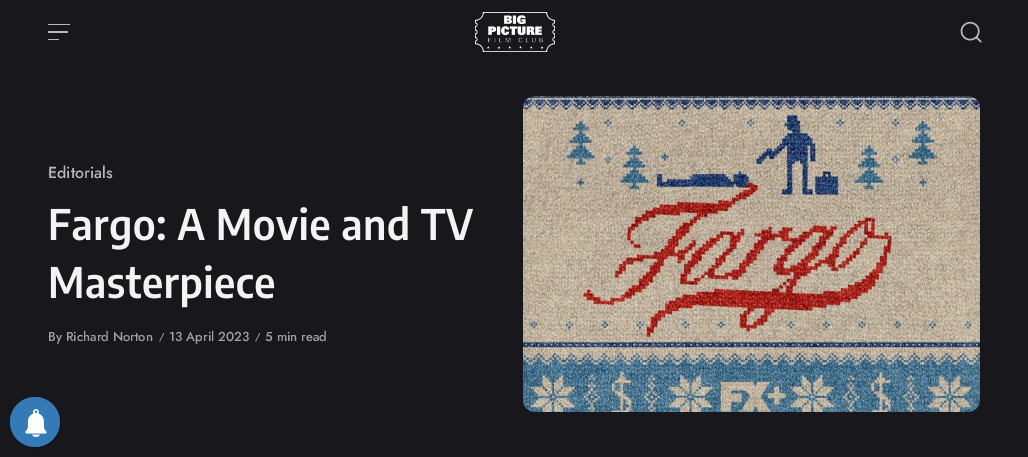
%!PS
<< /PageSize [1028 457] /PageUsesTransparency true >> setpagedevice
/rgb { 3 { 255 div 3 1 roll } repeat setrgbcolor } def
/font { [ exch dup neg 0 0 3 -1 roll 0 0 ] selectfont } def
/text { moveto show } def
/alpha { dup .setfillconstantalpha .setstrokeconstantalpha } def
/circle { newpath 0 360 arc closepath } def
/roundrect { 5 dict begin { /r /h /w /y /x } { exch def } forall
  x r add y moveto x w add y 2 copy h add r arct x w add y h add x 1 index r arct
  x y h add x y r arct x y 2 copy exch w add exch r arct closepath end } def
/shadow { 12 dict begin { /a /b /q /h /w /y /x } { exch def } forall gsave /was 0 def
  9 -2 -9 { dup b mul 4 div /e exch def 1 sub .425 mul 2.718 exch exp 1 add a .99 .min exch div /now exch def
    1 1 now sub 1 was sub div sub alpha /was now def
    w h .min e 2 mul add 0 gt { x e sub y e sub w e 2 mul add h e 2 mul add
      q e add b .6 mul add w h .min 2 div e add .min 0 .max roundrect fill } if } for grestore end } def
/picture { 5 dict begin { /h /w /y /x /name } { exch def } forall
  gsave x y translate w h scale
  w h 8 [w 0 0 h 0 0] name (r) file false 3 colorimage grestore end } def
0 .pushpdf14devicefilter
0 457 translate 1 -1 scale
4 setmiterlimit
24 23 28 rgb
0 0 1028 457 rectfill
186 185 187 rgb
48 24 22 1 0.5 roundrect fill
48 31 20 2 1 roundrect fill
48 39 11 1 0.5 roundrect fill
(img_01.rgb) 475 12 80 40 picture
(img_02.rgb) 960 21 22 22 picture
47 46 51 rgb
52 173 4 circle fill
(img_03.rgb) 50 206 424 44 picture
(img_04.rgb) 50 265 225 43 picture
(img_05.rgb) 523 96 457 316 picture
0 0 0 rgb
11 398 50 50 25 0.5 0.5 shadow
51 122 183 rgb
35 422 25 circle fill
(img_06.rgb) 25 409 22 28 picture
/Jost-Medium 16 font
186 186 187 rgb
(Editorials) 48 178 text
/Jost-Medium 13 font
163 162 164 rgb
(By Richard Norton) 48 341 text
/Jost-Medium 10 font
(/) 159 340 text
/Jost-Medium 13 font
(13 April 2023) 169 341 text
/Jost-Medium 10 font
(/) 255 340 text
/Jost-Medium 13 font
(5 min read) 265 341 text
.poppdf14devicefilter showpage
